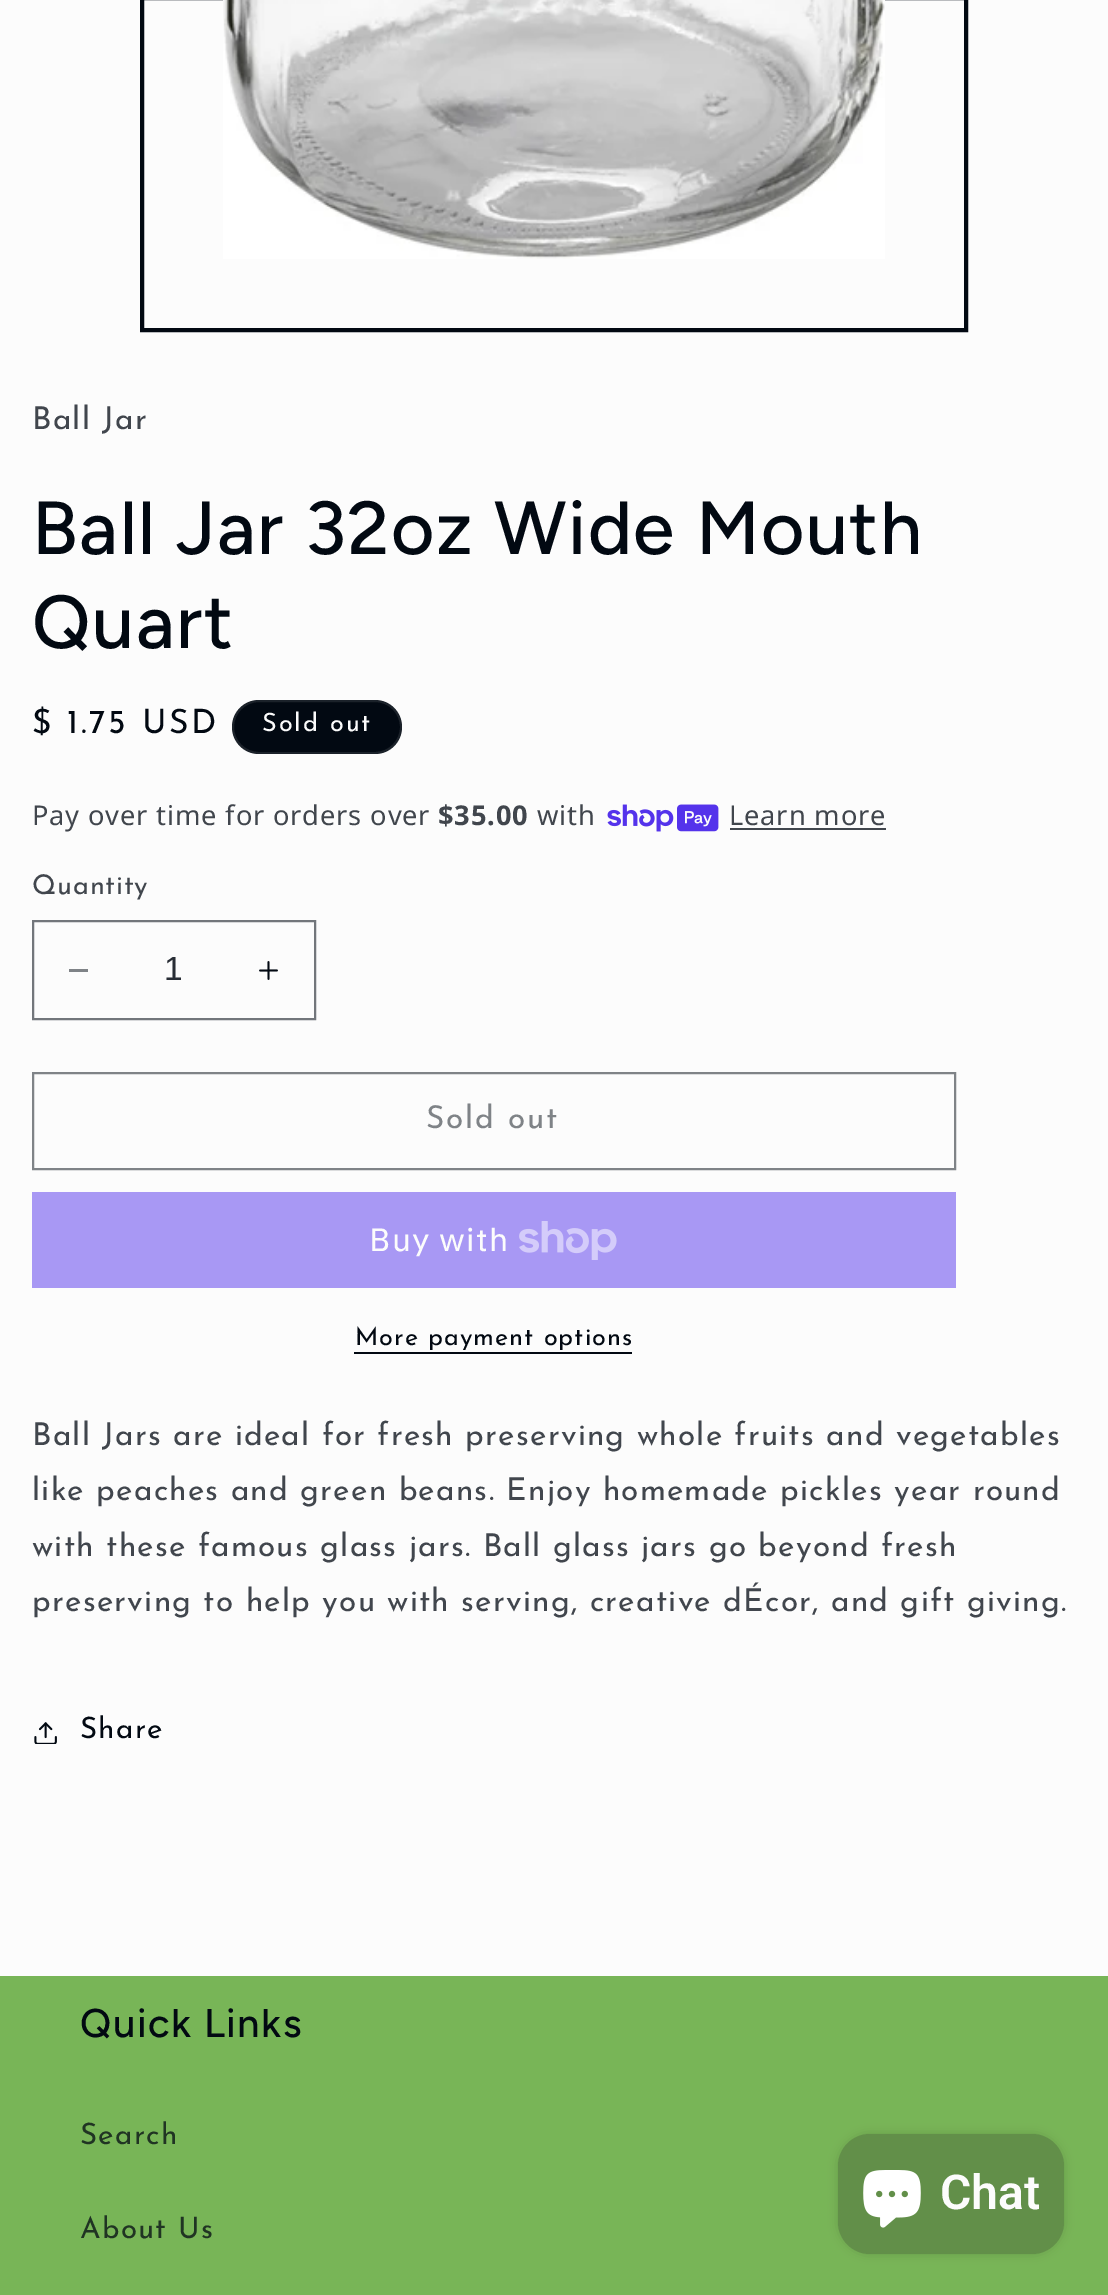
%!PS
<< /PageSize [1108 2295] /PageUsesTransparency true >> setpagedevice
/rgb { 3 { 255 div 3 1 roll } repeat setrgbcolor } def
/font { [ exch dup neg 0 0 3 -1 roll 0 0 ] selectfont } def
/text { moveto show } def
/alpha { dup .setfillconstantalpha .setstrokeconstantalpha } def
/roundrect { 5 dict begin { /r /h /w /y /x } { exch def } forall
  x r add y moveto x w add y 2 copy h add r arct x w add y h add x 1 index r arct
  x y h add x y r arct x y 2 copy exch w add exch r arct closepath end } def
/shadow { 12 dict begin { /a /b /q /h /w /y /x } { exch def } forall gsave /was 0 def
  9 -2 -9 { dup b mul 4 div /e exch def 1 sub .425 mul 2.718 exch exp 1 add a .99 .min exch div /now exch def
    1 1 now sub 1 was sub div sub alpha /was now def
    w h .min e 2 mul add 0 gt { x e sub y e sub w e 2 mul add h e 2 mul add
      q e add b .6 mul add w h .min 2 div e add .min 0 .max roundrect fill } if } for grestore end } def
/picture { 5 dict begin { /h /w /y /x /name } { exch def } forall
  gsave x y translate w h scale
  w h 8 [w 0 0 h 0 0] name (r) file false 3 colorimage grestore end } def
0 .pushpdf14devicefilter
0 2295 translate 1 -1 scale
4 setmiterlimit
252 252 252 rgb
0 0 1108 2295 rectfill
2 9 18 rgb
4 setlinewidth
142 -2 824 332 rectstroke
(img_01.rgb) 223 0 662 259 picture
232 700 170 54 27 roundrect fill
0.1 alpha
252 252 252 rgb
2 setlinewidth
233 701 168 52 26 roundrect stroke
1 alpha
(img_02.rgb) 607 804 112 28 picture
65 70 77 rgb
730 828 156 2 rectfill
127 131 135 rgb
69 969 19 3 rectfill
(img_03.rgb) 259 961 19 19 picture
114 118 123 rgb
33 921 282 98 rectstroke
127 131 135 rgb
33 1073 922 96 rectstroke
168 152 244 rgb
32 1192 924 96 rectfill
(img_04.rgb) 519 1221 98 39 picture
2 9 18 rgb
354 1352 278 2 rectfill
(img_05.rgb) 34 1722 23 22 picture
120 181 87 rgb
0 1976 1108 319 rectfill
0 0 0 rgb
838 2134 226 120 32 5 0.15 shadow
98 143 73 rgb
838 2134 226 120 32 roundrect fill
(img_06.rgb) 863 2170 58 58 picture
/JosefinSans-Regular 31.5 font
65 70 77 rgb
32 429 moveto 1.25 0 (Ball Jar) ashow
/Figtree-Medium 75 font
2 9 18 rgb
32 554 moveto 1.5 0 (Ball Jar 32oz Wide Mouth) ashow
32 648 moveto 1.5 0 (Quart) ashow
/JosefinSans-Regular 33.5 font
32 733 moveto 2.75 0 ($ 1.75 USD) ashow
/JosefinSans-Regular 25.25 font
252 252 252 rgb
262 731 moveto 2 0 (Sold out) ashow
/NotoSans-Regular 27.25 font
65 70 77 rgb
32 825 moveto 0.85 0 (Pay over time for orders over) ashow
/NotoSans-Bold 27.25 font
438 825 moveto 0.85 0 ($35.00) ashow
/NotoSans-Regular 27.25 font
537 825 moveto 0.85 0 (with) ashow
729 825 moveto 0.85 0 (Learn more) ashow
/JosefinSans-Regular 27.25 font
32 894 moveto 0.85 0 (Quantity) ashow
/LiberationSans-Regular 33.5 font
40 45 53 rgb
(1) 164 980 text
/JosefinSans-Regular 31.5 font
127 131 135 rgb
426 1128 moveto 2 0 (Sold out) ashow
/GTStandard-Regular 32 font
252 252 252 rgb
369 1251 moveto 1.25 0 (Buy with) ashow
/JosefinSans-Regular 25.25 font
2 9 18 rgb
355 1345 moveto 1.05 0 (More payment options) ashow
/JosefinSans-Regular 31.5 font
65 70 77 rgb
32 1445 moveto 1.25 0 (Ball Jars are ideal for fresh preserving whole fruits and vegetables) ashow
32 1500 moveto 1.25 0 (like peaches and green beans. Enjoy homemade pickles year round) ashow
32 1556 moveto 1.25 0 (with these famous glass jars. Ball glass jars go beyond fresh) ashow
32 1611 moveto 1.25 0 (preserving to help you with serving, creative dÉcor, and gift giving.) ashow
/JosefinSans-Regular 29.5 font
2 9 18 rgb
80 1738 moveto 1.25 0 (Share) ashow
/Figtree-Medium 40 font
80 2037 moveto 1.5 0 (Quick Links) ashow
/JosefinSans-Regular 29.5 font
32 52 35 rgb
80 2144 moveto 1.25 0 (Search) ashow
80 2238 moveto 1.25 0 (About Us) ashow
/Roboto-SemiBold 48 font
252 252 252 rgb
(Chat) 940 2209 text
.poppdf14devicefilter showpage
